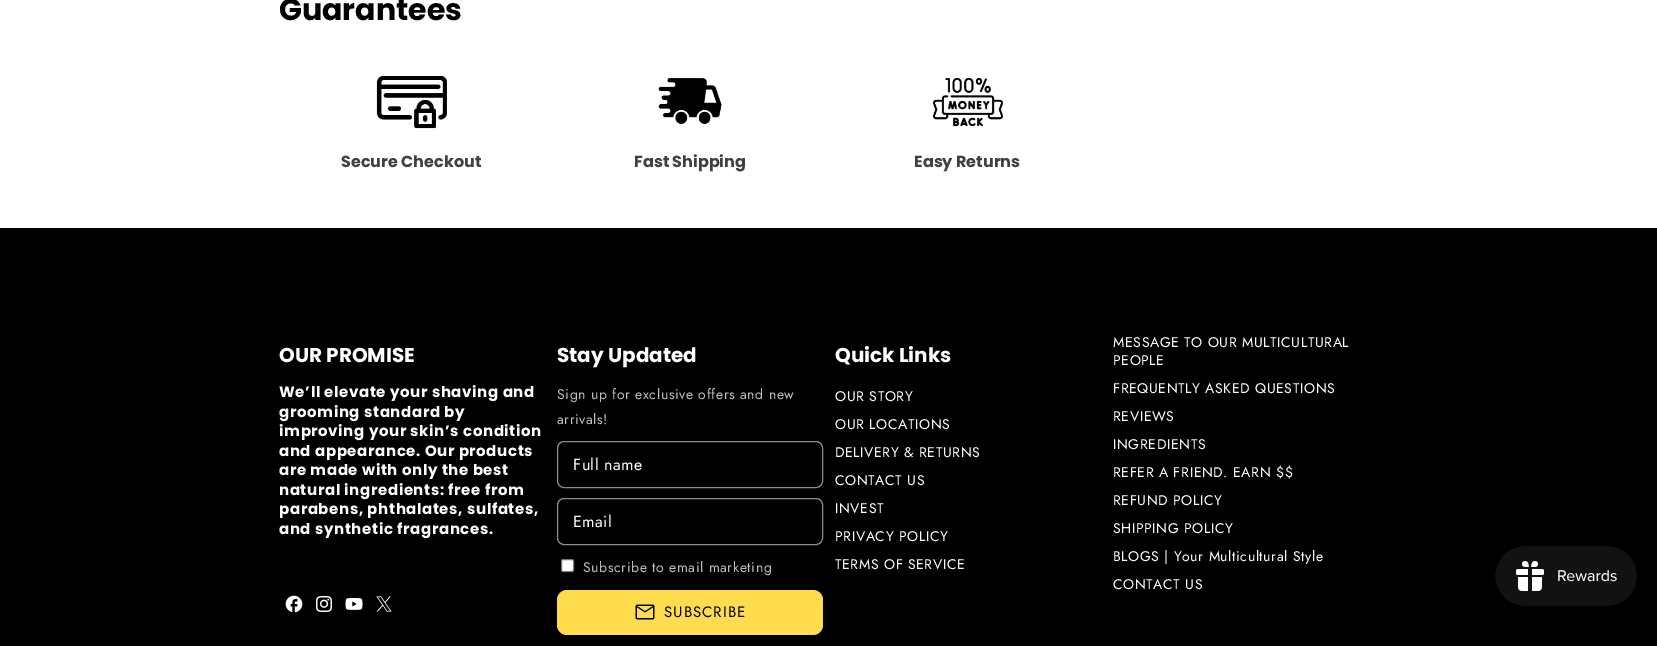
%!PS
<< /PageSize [1657 646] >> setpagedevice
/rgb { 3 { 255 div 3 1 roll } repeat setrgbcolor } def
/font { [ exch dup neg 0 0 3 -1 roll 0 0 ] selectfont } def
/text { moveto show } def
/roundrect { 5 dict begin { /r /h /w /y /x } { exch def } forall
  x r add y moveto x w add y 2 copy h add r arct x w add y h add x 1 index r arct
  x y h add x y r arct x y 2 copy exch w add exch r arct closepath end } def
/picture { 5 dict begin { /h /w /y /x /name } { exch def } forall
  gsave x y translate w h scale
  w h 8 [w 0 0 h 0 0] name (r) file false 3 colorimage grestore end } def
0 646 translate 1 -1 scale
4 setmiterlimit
255 255 255 rgb
0 0 1657 646 rectfill
(img_01.rgb) 376 76 71 53 picture
(img_02.rgb) 658 78 64 46 picture
(img_03.rgb) 932 77 71 50 picture
0 0 0 rgb
0 228 1657 418 rectfill
(img_04.rgb) 285 595 18 18 picture
(img_05.rgb) 316 596 16 16 picture
(img_06.rgb) 345 598 18 12 picture
(img_07.rgb) 376 596 16 16 picture
140 140 140 rgb
557.5 441.5 265 46 6.5 roundrect stroke
557.5 498.5 265 46 6.5 roundrect stroke
255 255 255 rgb
561.5 559.5 12 12 1.5 roundrect gsave fill grestore
118 118 118 rgb
stroke
255 220 78 rgb
557 590 266 45 10 roundrect fill
(img_08.rgb) 635 604 20 16 picture
(img_09.rgb) 1495 546 142 60 picture
/Poppins-Bold 30 font
0 0 0 rgb
(Guarantees) 279 20 text
/Poppins-Bold 16 font
64 64 64 rgb
(Secure Checkout) 341 167 text
(Fast Shipping) 634 167 text
(Easy Returns) 914 167 text
/Poppins-Bold 20 font
255 255 255 rgb
(OUR PROMISE) 279 362 text
/Poppins-Bold 15 font
279 397 moveto 0.6 0 (We’ll elevate your shaving and) ashow
279 417 moveto 0.6 0 (grooming standard by) ashow
279 436 moveto 0.6 0 (improving your skin’s condition) ashow
279 456 moveto 0.6 0 (and appearance. Our products) ashow
279 475 moveto 0.6 0 (are made with only the best) ashow
279 495 moveto 0.6 0 (natural ingredients: free from) ashow
279 514 moveto 0.6 0 (parabens, phthalates, sulfates,) ashow
279 534 moveto 0.6 0 (and synthetic fragrances.) ashow
/Poppins-Bold 20 font
(Stay Updated) 557 362 text
/Jost-Regular 14 font
191 191 191 rgb
557 399 moveto 0.6 0 (Sign up for exclusive offers and new) ashow
557 424 moveto 0.6 0 (arrivals!) ashow
/Jost-Regular 16 font
255 255 255 rgb
573 470 moveto 0.5 0 (Full name) ashow
573 527 moveto 0.5 0 (Email) ashow
/Jost-Regular 14 font
191 191 191 rgb
583 572 moveto 0.6 0 (Subscribe to email marketing) ashow
/Jost-Regular 15 font
0 0 0 rgb
664 617 moveto 1 0 (SUBSCRIBE) ashow
/Poppins-Bold 20 font
255 255 255 rgb
(Quick Links) 835 362 text
/Jost-Regular 14 font
835 401 moveto 0.6 0 (OUR STORY) ashow
835 429 moveto 0.6 0 (OUR LOCATIONS) ashow
835 457 moveto 0.6 0 (DELIVERY & RETURNS) ashow
835 485 moveto 0.6 0 (CONTACT US) ashow
835 513 moveto 0.6 0 (INVEST) ashow
835 541 moveto 0.6 0 (PRIVACY POLICY) ashow
835 569 moveto 0.6 0 (TERMS OF SERVICE) ashow
1113 347 moveto 0.6 0 (MESSAGE TO OUR MULTICULTURAL) ashow
1113 365 moveto 0.6 0 (PEOPLE) ashow
1113 393 moveto 0.6 0 (FREQUENTLY ASKED QUESTIONS) ashow
1113 421 moveto 0.6 0 (REVIEWS) ashow
1113 449 moveto 0.6 0 (INGREDIENTS) ashow
1113 477 moveto 0.6 0 (REFER A FRIEND. EARN $$) ashow
1113 505 moveto 0.6 0 (REFUND POLICY) ashow
1113 533 moveto 0.6 0 (SHIPPING POLICY) ashow
1113 561 moveto 0.6 0 (BLOGS | Your Multicultural Style) ashow
1113 589 moveto 0.6 0 (CONTACT US) ashow
showpage
